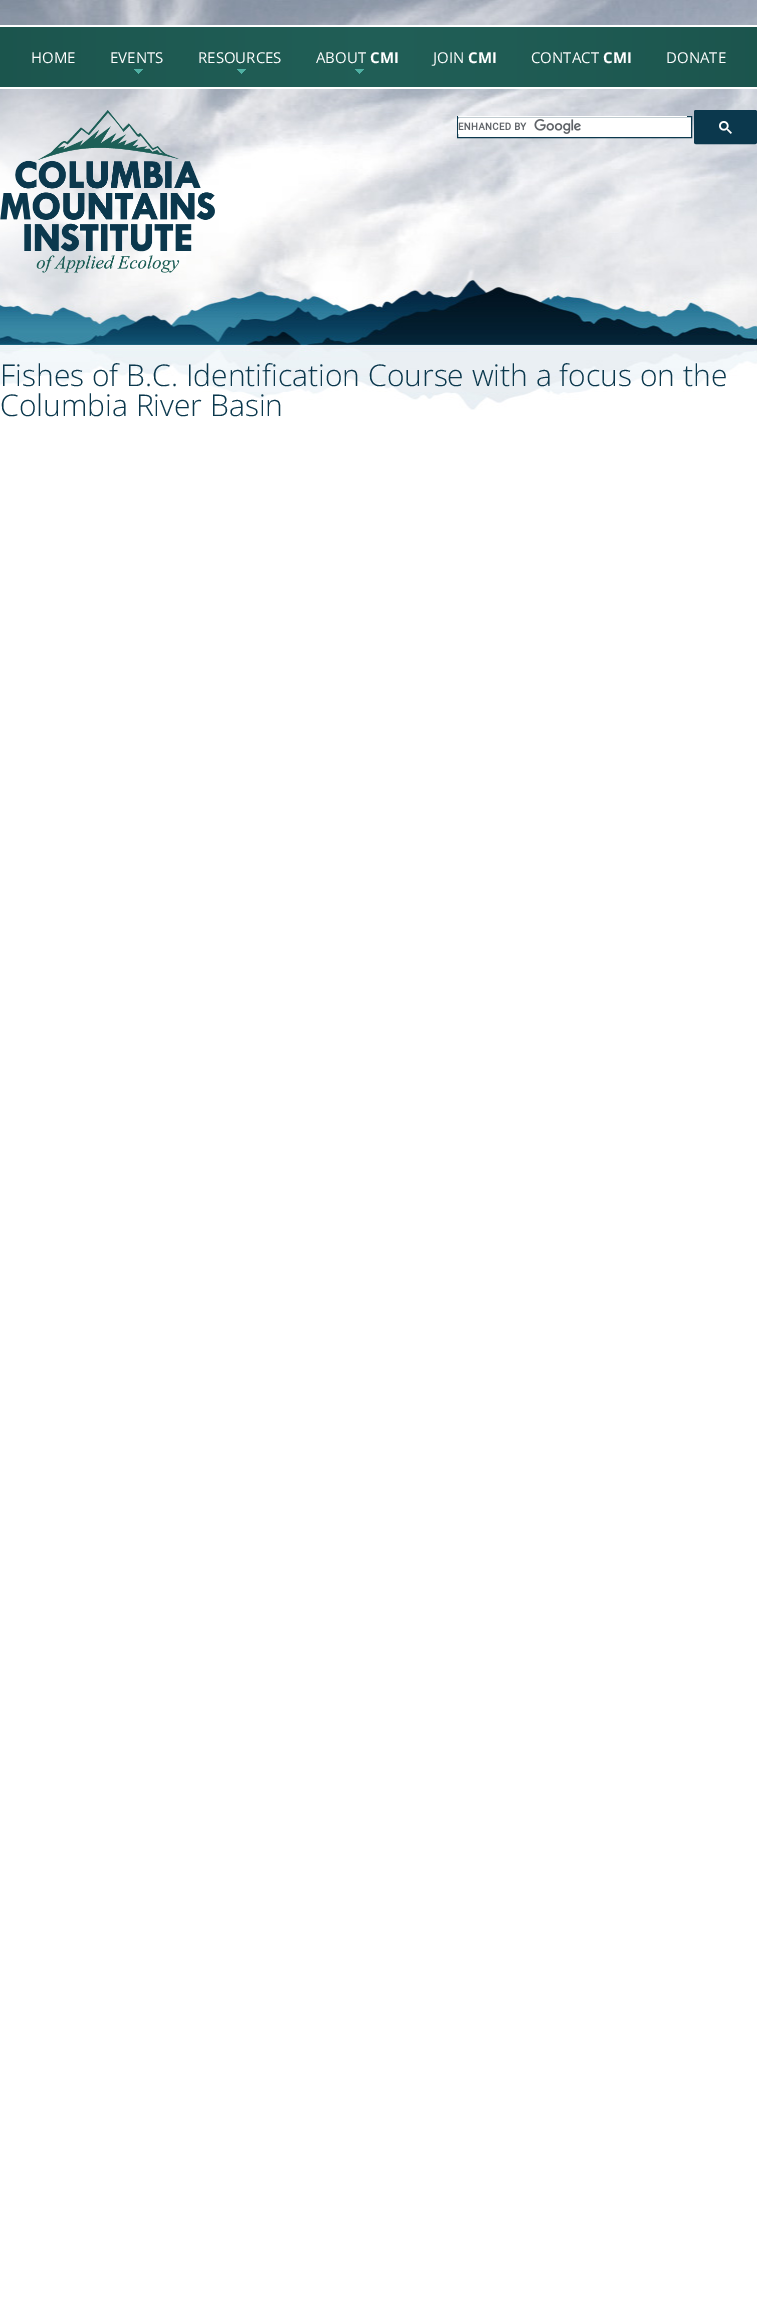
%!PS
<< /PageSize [757 2302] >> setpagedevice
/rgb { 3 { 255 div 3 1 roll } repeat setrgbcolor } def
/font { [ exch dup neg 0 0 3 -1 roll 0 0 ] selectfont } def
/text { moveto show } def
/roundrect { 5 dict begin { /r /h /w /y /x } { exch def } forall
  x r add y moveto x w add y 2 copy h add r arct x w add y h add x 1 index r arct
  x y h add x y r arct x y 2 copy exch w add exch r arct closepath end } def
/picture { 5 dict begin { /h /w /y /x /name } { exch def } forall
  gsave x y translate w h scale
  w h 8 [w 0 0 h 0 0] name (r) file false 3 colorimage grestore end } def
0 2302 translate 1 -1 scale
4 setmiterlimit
255 255 255 rgb
0 0 757 2302 rectfill
(img_01.rgb) 0 0 757 410 picture
(img_02.rgb) 0 27 757 60 picture
0 25 757 2 rectfill
0 87 757 2 rectfill
(img_03.rgb) 134 69 9 5 picture
(img_04.rgb) 237 69 9 5 picture
(img_05.rgb) 355 69 9 5 picture
(img_06.rgb) 0 110 215 163 picture
457.5 116.5 moveto 234 0 rlineto 0 21 rlineto -234 0 rlineto closepath gsave fill grestore
11 56 77 rgb
stroke
255 255 255 rgb
458 116 229 1 rectfill
(img_07.rgb) 458 119 123 15 picture
11 56 77 rgb
694.5 110.5 62 33 1.5 roundrect gsave fill grestore
stroke
(img_08.rgb) 719 121 13 13 picture
/OpenSans-Regular 15 font
255 255 255 rgb
(HOME) 31 63 text
(EVENTS) 110 63 text
(RESOURCES) 198 63 text
(ABOUT) 316 63 text
/OpenSans-Bold 15 font
(CMI) 370 63 text
/OpenSans-Regular 15 font
(JOIN) 433 63 text
/OpenSans-Bold 15 font
(CMI) 468 63 text
/OpenSans-Regular 15 font
(CONTACT) 531 63 text
/OpenSans-Bold 15 font
(CMI) 603 63 text
/OpenSans-Regular 15 font
(DONATE) 666 63 text
/OpenSans-Light 30 font
11 56 77 rgb
(Fishes of B.C. Identification Course with a focus on the) 0 386 text
(Columbia River Basin) 0 416 text
showpage
